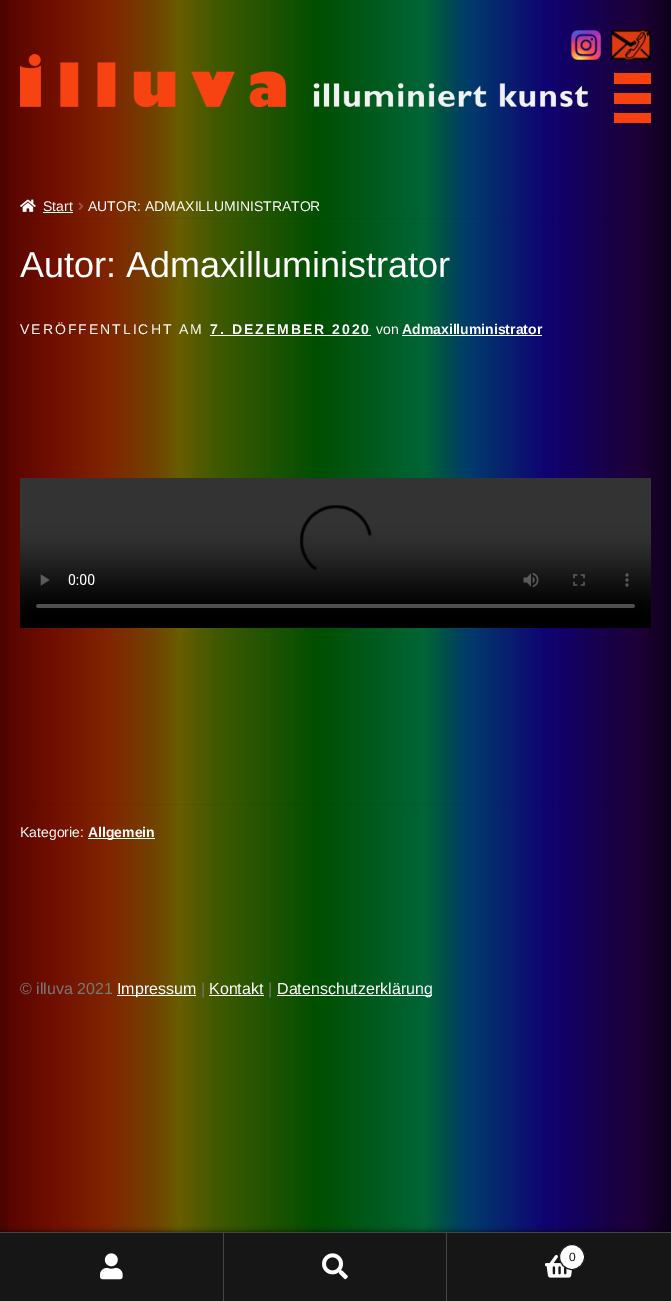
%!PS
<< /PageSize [671 1301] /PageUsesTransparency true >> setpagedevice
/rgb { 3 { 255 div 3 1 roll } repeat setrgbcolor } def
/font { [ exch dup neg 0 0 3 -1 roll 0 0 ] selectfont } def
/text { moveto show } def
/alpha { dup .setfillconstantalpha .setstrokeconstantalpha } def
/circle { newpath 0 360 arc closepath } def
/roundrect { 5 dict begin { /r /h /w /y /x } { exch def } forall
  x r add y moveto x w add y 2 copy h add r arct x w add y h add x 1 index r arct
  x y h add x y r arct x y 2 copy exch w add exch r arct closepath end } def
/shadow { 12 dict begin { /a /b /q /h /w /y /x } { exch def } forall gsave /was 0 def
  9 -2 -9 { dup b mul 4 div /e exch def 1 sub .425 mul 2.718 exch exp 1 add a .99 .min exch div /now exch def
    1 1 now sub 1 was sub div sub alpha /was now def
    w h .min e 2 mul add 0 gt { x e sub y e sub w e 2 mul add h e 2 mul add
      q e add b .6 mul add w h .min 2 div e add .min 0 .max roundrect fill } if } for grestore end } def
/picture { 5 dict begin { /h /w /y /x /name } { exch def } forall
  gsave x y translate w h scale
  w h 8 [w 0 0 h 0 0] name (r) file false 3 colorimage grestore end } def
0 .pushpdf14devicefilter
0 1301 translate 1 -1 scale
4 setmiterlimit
255 255 255 rgb
0 0 671 1301 rectfill
(img_01.rgb) 0 0 671 1232 picture
(img_04.rgb) 20 54 568 53 picture
(img_02.rgb) 571 30 30 30 picture
(img_03.rgb) 611 30 40 30 picture
248 65 15 rgb
614 93 37 11 rectfill
614 73 37 11 rectfill
614 113 37 10 rectfill
0.05 alpha
0 0 0 rgb
20 218 621 1 rectfill
1 alpha
(img_05.rgb) 20 199 16 13 picture
255 255 255 rgb
43 212 30 1 rectfill
(img_06.rgb) 78 202 6 8 picture
210 335 161 1 rectfill
402 335 140 1 rectfill
(img_07.rgb) 20 478 631 150 picture
0.05 alpha
0 0 0 rgb
20 804 621 1 rectfill
1 alpha
255 255 255 rgb
88 838 67 1 rectfill
117 995 79 1 rectfill
209 995 55 1 rectfill
277 995 155 1 rectfill
0 0 0 rgb
0 1232 671 69 0 3 0.7 shadow
22 22 22 rgb
0 1233 671 68 rectfill
69 69 69 rgb
0 1232 671 1 rectfill
223 1233 1 68 rectfill
(img_08.rgb) 100 1253 23 27 picture
446 1233 1 68 rectfill
(img_09.rgb) 322 1253 26 27 picture
(img_10.rgb) 545 1255 28 23 picture
255 255 255 rgb
572 1257 12.5 circle gsave fill grestore
22 22 22 rgb
stroke
/LiberationSans-Regular 14 font
255 255 255 rgb
(Start) 43 211 text
(AUTOR: ADMAXILLUMINISTRATOR) 88 211 text
/LiberationSans-Regular 36 font
(Autor: Admaxilluministrator) 20 277 text
/LiberationSans-Regular 14 font
20 334 moveto 2 0 (VERÖFFENTLICHT AM) ashow
/LiberationSans-Bold 14 font
210 334 moveto 2 0 (7. DEZEMBER 2020) ashow
/LiberationSans-Regular 14 font
(von) 376 334 text
/LiberationSans-Bold 14 font
(Admaxilluministrator) 402 334 text
/LiberationSans-Regular 14 font
(Kategorie:) 20 837 text
/LiberationSans-Bold 14 font
(Allgemein) 88 837 text
/LiberationSans-Regular 16 font
119 119 119 rgb
(© illuva 2021) 20 994 text
255 255 255 rgb
(Impressum) 117 994 text
119 119 119 rgb
(|) 201 994 text
255 255 255 rgb
(Kontakt) 209 994 text
119 119 119 rgb
(|) 268 994 text
255 255 255 rgb
(Datenschutzerklärung) 277 994 text
/LiberationSans-Regular 12 font
22 22 22 rgb
(0) 569 1261 text
.poppdf14devicefilter showpage
